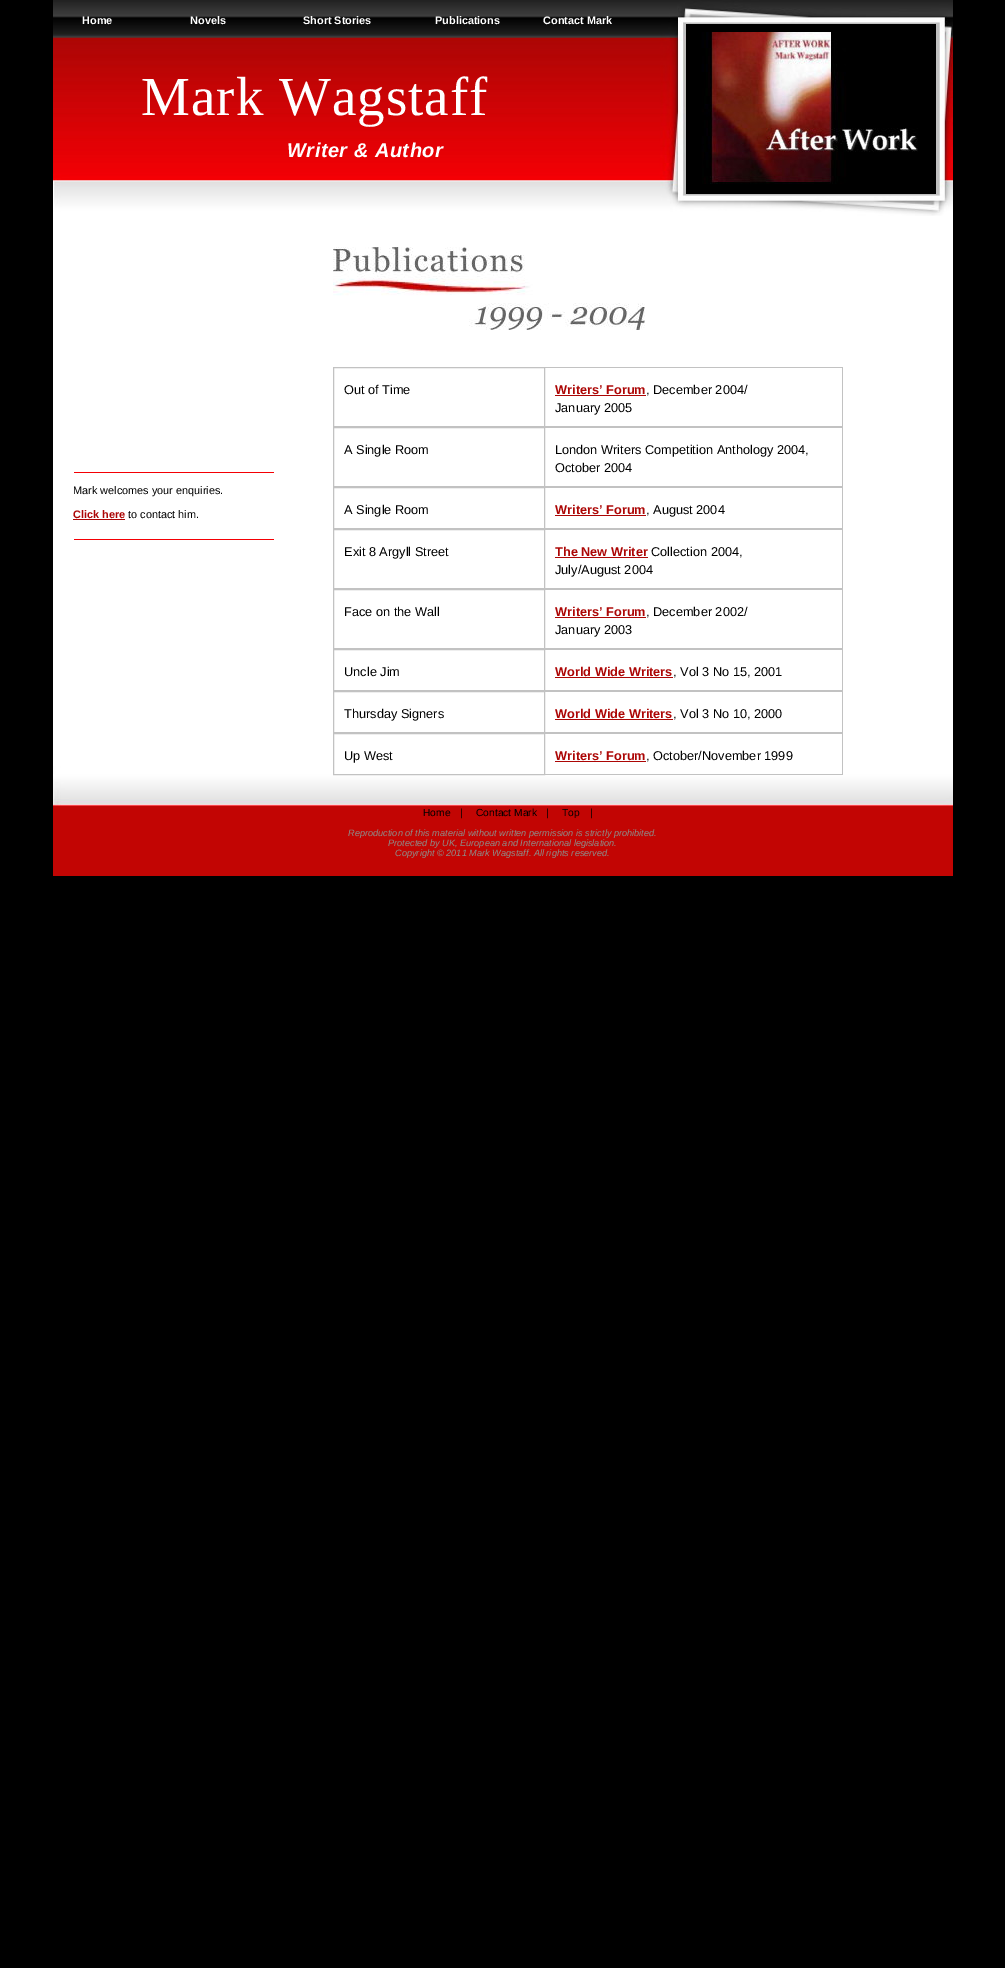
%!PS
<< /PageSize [1005 1968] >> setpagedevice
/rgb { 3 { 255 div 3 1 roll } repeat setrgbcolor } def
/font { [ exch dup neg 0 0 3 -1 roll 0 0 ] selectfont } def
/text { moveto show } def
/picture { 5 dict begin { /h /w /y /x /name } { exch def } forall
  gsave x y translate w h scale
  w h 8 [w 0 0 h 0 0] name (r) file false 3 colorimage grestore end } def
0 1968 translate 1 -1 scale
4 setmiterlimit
0 0 0 rgb
0 0 1005 1968 rectfill
255 255 255 rgb
53 216 900 550 rectfill
(img_01.rgb) 53 0 900 216 picture
(img_02.rgb) 686 24 250 170 picture
244 0 5 rgb
74 472 200 1 rectfill
172 6 5 rgb
73 519 52 1 rectfill
244 0 5 rgb
74 539 200 1 rectfill
(img_03.rgb) 333 247 312 83 picture
194 194 194 rgb
333.5 367.5 211 59 rectstroke
545 367 298 1 rectfill
842 367 1 60 rectfill
545 426 298 2 rectfill
172 6 5 rgb
555 395 91 1 rectfill
194 194 194 rgb
333.5 427.5 211 59 rectstroke
842 427 1 60 rectfill
545 486 298 2 rectfill
333.5 487.5 211 41 rectstroke
842 487 1 42 rectfill
545 528 298 2 rectfill
172 6 5 rgb
555 515 91 1 rectfill
194 194 194 rgb
333.5 529.5 211 59 rectstroke
842 529 1 60 rectfill
545 588 298 2 rectfill
172 6 5 rgb
555 557 93 1 rectfill
194 194 194 rgb
333.5 589.5 211 59 rectstroke
842 589 1 60 rectfill
545 648 298 2 rectfill
172 6 5 rgb
555 617 91 1 rectfill
194 194 194 rgb
333.5 649.5 211 41 rectstroke
842 649 1 42 rectfill
545 690 298 2 rectfill
172 6 5 rgb
555 677 118 1 rectfill
194 194 194 rgb
333.5 691.5 211 41 rectstroke
842 691 1 42 rectfill
545 732 298 2 rectfill
172 6 5 rgb
555 719 118 1 rectfill
(img_04.rgb) 53 766 900 110 picture
194 194 194 rgb
333.5 733.5 211 41 rectstroke
842 733 1 42 rectfill
545 774 298 1 rectfill
172 6 5 rgb
555 761 91 1 rectfill
/LiberationSans-Bold 10.9 font
255 255 255 rgb
(Home) 82 24 text
(Novels) 190 24 text
(Short Stories) 303 24 text
(Publications) 435 24 text
(Contact Mark) 543 24 text
/LiberationSerif-Regular 55 font
141 115 moveto 1 0 (Mark Wagstaff) ashow
/LiberationSans-BoldItalic 20 font
287 157 moveto 0.5 0 (Writer & Author) ashow
/LiberationSans-Regular 10.9 font
0 0 0 rgb
(Mark welcomes your enquiries.) 73 494 text
/LiberationSans-Bold 10.9 font
172 6 5 rgb
(Click here) 73 518 text
/LiberationSans-Regular 10.9 font
0 0 0 rgb
(to contact him.) 128 518 text
/LiberationSans-Regular 12.75 font
(Out of Time) 344 394 text
/LiberationSans-Bold 12.75 font
172 6 5 rgb
(Writers’ Forum) 555 394 text
/LiberationSans-Regular 12.75 font
0 0 0 rgb
(, December 2004/) 646 394 text
(January 2005) 555 412 text
(A Single Room) 344 454 text
(London Writers Competition Anthology 2004,) 555 454 text
(October 2004) 555 472 text
(A Single Room) 344 514 text
/LiberationSans-Bold 12.75 font
172 6 5 rgb
(Writers’ Forum) 555 514 text
/LiberationSans-Regular 12.75 font
0 0 0 rgb
(, August 2004) 646 514 text
(Exit 8 Argyll Street) 344 556 text
/LiberationSans-Bold 12.75 font
172 6 5 rgb
(The New Writer) 555 556 text
/LiberationSans-Regular 12.75 font
0 0 0 rgb
(Collection 2004,) 651 556 text
(July/August 2004) 555 574 text
(Face on the Wall) 344 616 text
/LiberationSans-Bold 12.75 font
172 6 5 rgb
(Writers’ Forum) 555 616 text
/LiberationSans-Regular 12.75 font
0 0 0 rgb
(, December 2002/) 646 616 text
(January 2003) 555 634 text
(Uncle Jim) 344 676 text
/LiberationSans-Bold 12.75 font
172 6 5 rgb
(World Wide Writers) 555 676 text
/LiberationSans-Regular 12.75 font
0 0 0 rgb
(, Vol 3 No 15, 2001) 673 676 text
(Thursday Signers) 344 718 text
/LiberationSans-Bold 12.75 font
172 6 5 rgb
(World Wide Writers) 555 718 text
/LiberationSans-Regular 12.75 font
0 0 0 rgb
(, Vol 3 No 10, 2000) 673 718 text
(Up West) 344 760 text
/LiberationSans-Bold 12.75 font
172 6 5 rgb
(Writers’ Forum) 555 760 text
/LiberationSans-Regular 12.75 font
0 0 0 rgb
(, October/November 1999) 646 760 text
/LiberationSans-Regular 10.25 font
(Home) 423 816 text
(|) 460 816 text
(Contact Mark) 476 816 text
(|) 546 816 text
(Top) 562 816 text
(|) 590 816 text
/LiberationSans-Italic 9.2 font
142 141 137 rgb
(Reproduction of this material without written permission is strictly prohibited.) 348 836 text
(Protected by UK, European and International legislation.) 388 846 text
(Copyright © 2011 Mark Wagstaff. All rights reserved.) 395 856 text
showpage
